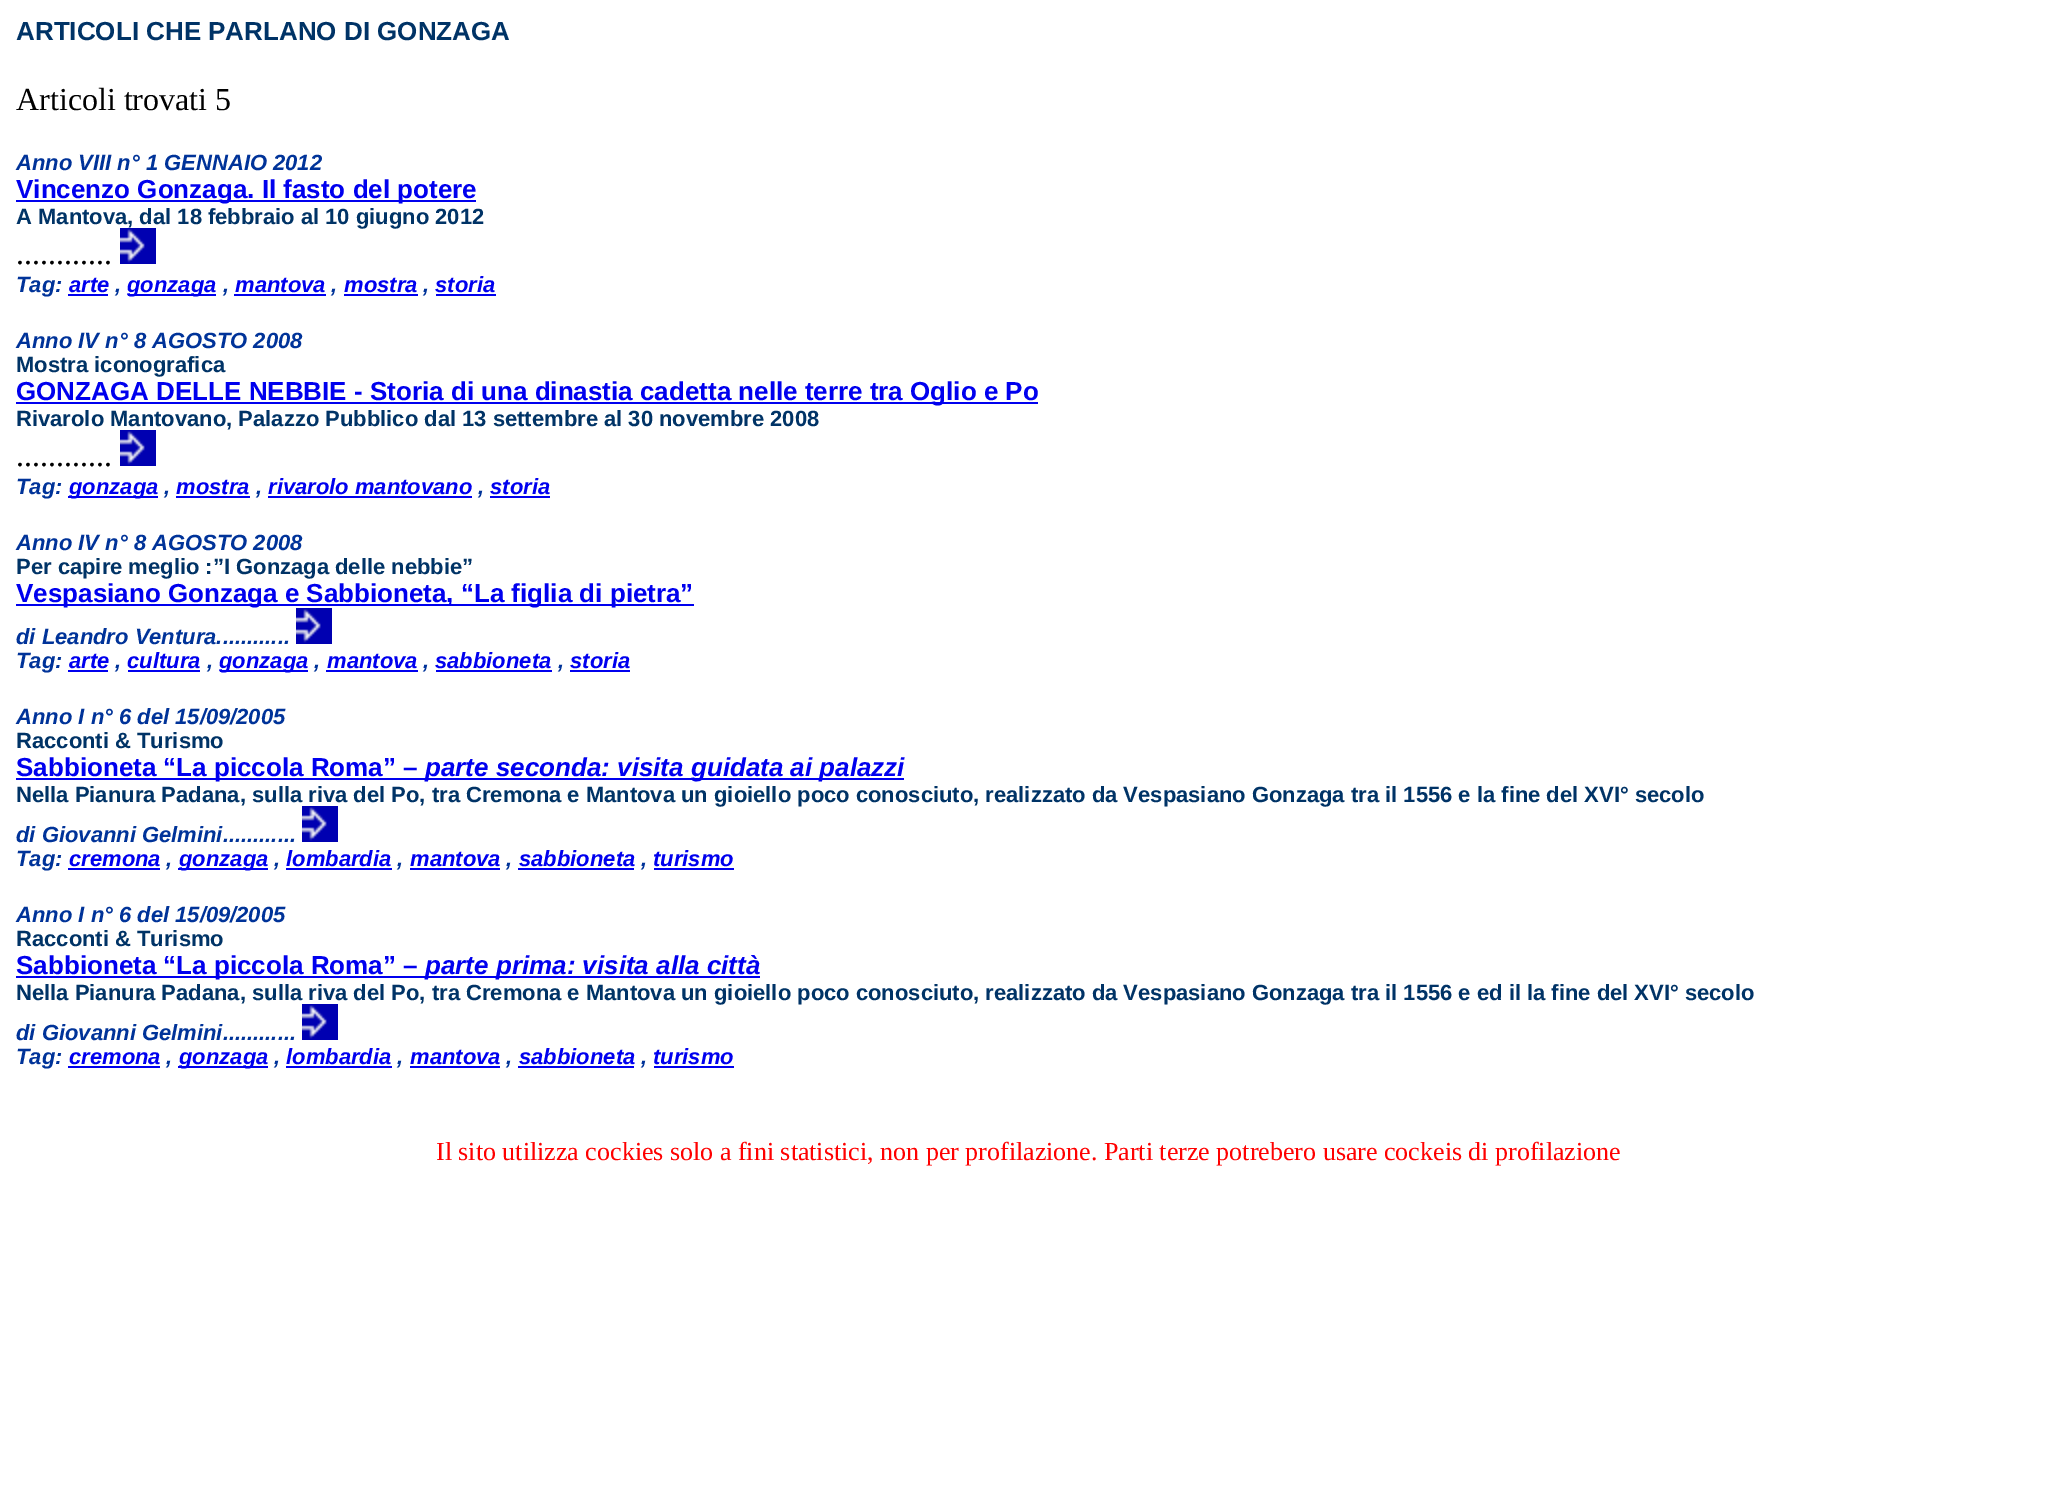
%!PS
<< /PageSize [2055 1510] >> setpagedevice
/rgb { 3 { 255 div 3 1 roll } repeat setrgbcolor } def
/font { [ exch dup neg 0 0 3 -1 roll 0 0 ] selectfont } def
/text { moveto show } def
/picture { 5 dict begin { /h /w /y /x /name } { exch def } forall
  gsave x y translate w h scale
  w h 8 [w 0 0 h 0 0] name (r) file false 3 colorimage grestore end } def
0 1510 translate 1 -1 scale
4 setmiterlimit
255 255 255 rgb
0 0 2055 1510 rectfill
0 0 238 rgb
16 200 460 2 rectfill
68 294 40 2 rectfill
128 294 88 2 rectfill
234 294 92 2 rectfill
344 294 74 2 rectfill
436 294 60 2 rectfill
16 402 1022 2 rectfill
(img_01.rgb) 120 430 36 36 picture
68 496 90 2 rectfill
176 496 74 2 rectfill
268 496 204 2 rectfill
490 496 60 2 rectfill
16 604 678 2 rectfill
(img_01.rgb) 296 608 36 36 picture
68 670 40 2 rectfill
128 670 72 2 rectfill
220 670 88 2 rectfill
326 670 92 2 rectfill
436 670 116 2 rectfill
570 670 60 2 rectfill
16 778 888 2 rectfill
68 868 92 2 rectfill
178 868 90 2 rectfill
286 868 106 2 rectfill
410 868 90 2 rectfill
518 868 116 2 rectfill
654 868 80 2 rectfill
16 976 744 2 rectfill
68 1066 92 2 rectfill
178 1066 90 2 rectfill
286 1066 106 2 rectfill
410 1066 90 2 rectfill
518 1066 116 2 rectfill
654 1066 80 2 rectfill
/LiberationSans-Bold 26 font
0 51 102 rgb
(ARTICOLI CHE PARLANO DI GONZAGA) 16 40 text
/LiberationSerif-Regular 32 font
0 0 0 rgb
(Articoli trovati 5) 16 110 text
/LiberationSans-BoldItalic 22 font
0 51 153 rgb
(Anno VIII n° 1 GENNAIO 2012) 16 170 text
/LiberationSans-Bold 26 font
0 0 238 rgb
(Vincenzo Gonzaga. Il fasto del potere) 16 198 text
/LiberationSans-Bold 22 font
0 51 102 rgb
(A Mantova, dal 18 febbraio al 10 giugno 2012) 16 224 text
/LiberationSerif-Regular 32 font
0 0 0 rgb
(............) 16 264 text
(img_01.rgb) 120 228 36 36 picture
/LiberationSans-BoldItalic 22 font
0 51 153 rgb
(Tag:) 16 292 text
0 0 238 rgb
(arte) 69 292 text
0 51 153 rgb
(,) 115 292 text
0 0 238 rgb
(gonzaga) 127 292 text
0 51 153 rgb
(,) 223 292 text
0 0 238 rgb
(mantova) 235 292 text
0 51 153 rgb
(,) 331 292 text
0 0 238 rgb
(mostra) 344 292 text
0 51 153 rgb
(,) 423 292 text
0 0 238 rgb
(storia) 435 292 text
0 51 153 rgb
(Anno IV n° 8 AGOSTO 2008) 16 348 text
/LiberationSans-Bold 22 font
0 51 102 rgb
(Mostra iconografica) 16 372 text
/LiberationSans-Bold 26 font
0 0 238 rgb
(GONZAGA DELLE NEBBIE - Storia di una dinastia cadetta nelle terre tra Oglio e Po) 16 400 text
/LiberationSans-Bold 22 font
0 51 102 rgb
(Rivarolo Mantovano, Palazzo Pubblico dal 13 settembre al 30 novembre 2008) 16 426 text
/LiberationSerif-Regular 32 font
0 0 0 rgb
(............) 16 466 text
/LiberationSans-BoldItalic 22 font
0 51 153 rgb
(Tag:) 16 494 text
0 0 238 rgb
(gonzaga) 69 494 text
0 51 153 rgb
(,) 164 494 text
0 0 238 rgb
(mostra) 176 494 text
0 51 153 rgb
(,) 256 494 text
0 0 238 rgb
(rivarolo mantovano) 268 494 text
0 51 153 rgb
(,) 478 494 text
0 0 238 rgb
(storia) 490 494 text
0 51 153 rgb
(Anno IV n° 8 AGOSTO 2008) 16 550 text
/LiberationSans-Bold 22 font
0 51 102 rgb
(Per capire meglio :”I Gonzaga delle nebbie”) 16 574 text
/LiberationSans-Bold 26 font
0 0 238 rgb
(Vespasiano Gonzaga e Sabbioneta, “La figlia di pietra”) 16 602 text
/LiberationSans-BoldItalic 22 font
0 51 153 rgb
(di Leandro Ventura............) 16 644 text
(Tag:) 16 668 text
0 0 238 rgb
(arte) 69 668 text
0 51 153 rgb
(,) 115 668 text
0 0 238 rgb
(cultura) 127 668 text
0 51 153 rgb
(,) 207 668 text
0 0 238 rgb
(gonzaga) 219 668 text
0 51 153 rgb
(,) 314 668 text
0 0 238 rgb
(mantova) 327 668 text
0 51 153 rgb
(,) 423 668 text
0 0 238 rgb
(sabbioneta) 435 668 text
0 51 153 rgb
(,) 558 668 text
0 0 238 rgb
(storia) 570 668 text
0 51 153 rgb
(Anno I n° 6 del 15/09/2005) 16 724 text
/LiberationSans-Bold 22 font
0 51 102 rgb
(Racconti & Turismo) 16 748 text
/LiberationSans-Bold 26 font
0 0 238 rgb
(Sabbioneta “La piccola Roma” –) 16 776 text
/LiberationSans-BoldItalic 26 font
(parte seconda: visita guidata ai palazzi) 425 776 text
/LiberationSans-Bold 22 font
0 51 102 rgb
(Nella Pianura Padana, sulla riva del Po, tra Cremona e Mantova un gioiello poco conosciuto, realizzato da Vespasiano Gonzaga tra il 1556 e la fine del XVI° secolo) 16 802 text
/LiberationSans-BoldItalic 22 font
0 51 153 rgb
(di Giovanni Gelmini............) 16 842 text
(img_01.rgb) 302 806 36 36 picture
(Tag:) 16 866 text
0 0 238 rgb
(cremona) 69 866 text
0 51 153 rgb
(,) 166 866 text
0 0 238 rgb
(gonzaga) 179 866 text
0 51 153 rgb
(,) 274 866 text
0 0 238 rgb
(lombardia) 286 866 text
0 51 153 rgb
(,) 397 866 text
0 0 238 rgb
(mantova) 410 866 text
0 51 153 rgb
(,) 506 866 text
0 0 238 rgb
(sabbioneta) 519 866 text
0 51 153 rgb
(,) 641 866 text
0 0 238 rgb
(turismo) 653 866 text
0 51 153 rgb
(Anno I n° 6 del 15/09/2005) 16 922 text
/LiberationSans-Bold 22 font
0 51 102 rgb
(Racconti & Turismo) 16 946 text
/LiberationSans-Bold 26 font
0 0 238 rgb
(Sabbioneta “La piccola Roma” –) 16 974 text
/LiberationSans-BoldItalic 26 font
(parte prima: visita alla città) 425 974 text
/LiberationSans-Bold 22 font
0 51 102 rgb
(Nella Pianura Padana, sulla riva del Po, tra Cremona e Mantova un gioiello poco conosciuto, realizzato da Vespasiano Gonzaga tra il 1556 e ed il la fine del XVI° secolo) 16 1000 text
/LiberationSans-BoldItalic 22 font
0 51 153 rgb
(di Giovanni Gelmini............) 16 1040 text
(img_01.rgb) 302 1004 36 36 picture
(Tag:) 16 1064 text
0 0 238 rgb
(cremona) 69 1064 text
0 51 153 rgb
(,) 166 1064 text
0 0 238 rgb
(gonzaga) 179 1064 text
0 51 153 rgb
(,) 274 1064 text
0 0 238 rgb
(lombardia) 286 1064 text
0 51 153 rgb
(,) 397 1064 text
0 0 238 rgb
(mantova) 410 1064 text
0 51 153 rgb
(,) 506 1064 text
0 0 238 rgb
(sabbioneta) 519 1064 text
0 51 153 rgb
(,) 641 1064 text
0 0 238 rgb
(turismo) 653 1064 text
/LiberationSerif-Regular 26 font
255 0 0 rgb
(Il sito utilizza cockies solo a fini statistici, non per profilazione. Parti terze potrebero usare cockeis di profilazione) 436 1160 text
showpage
